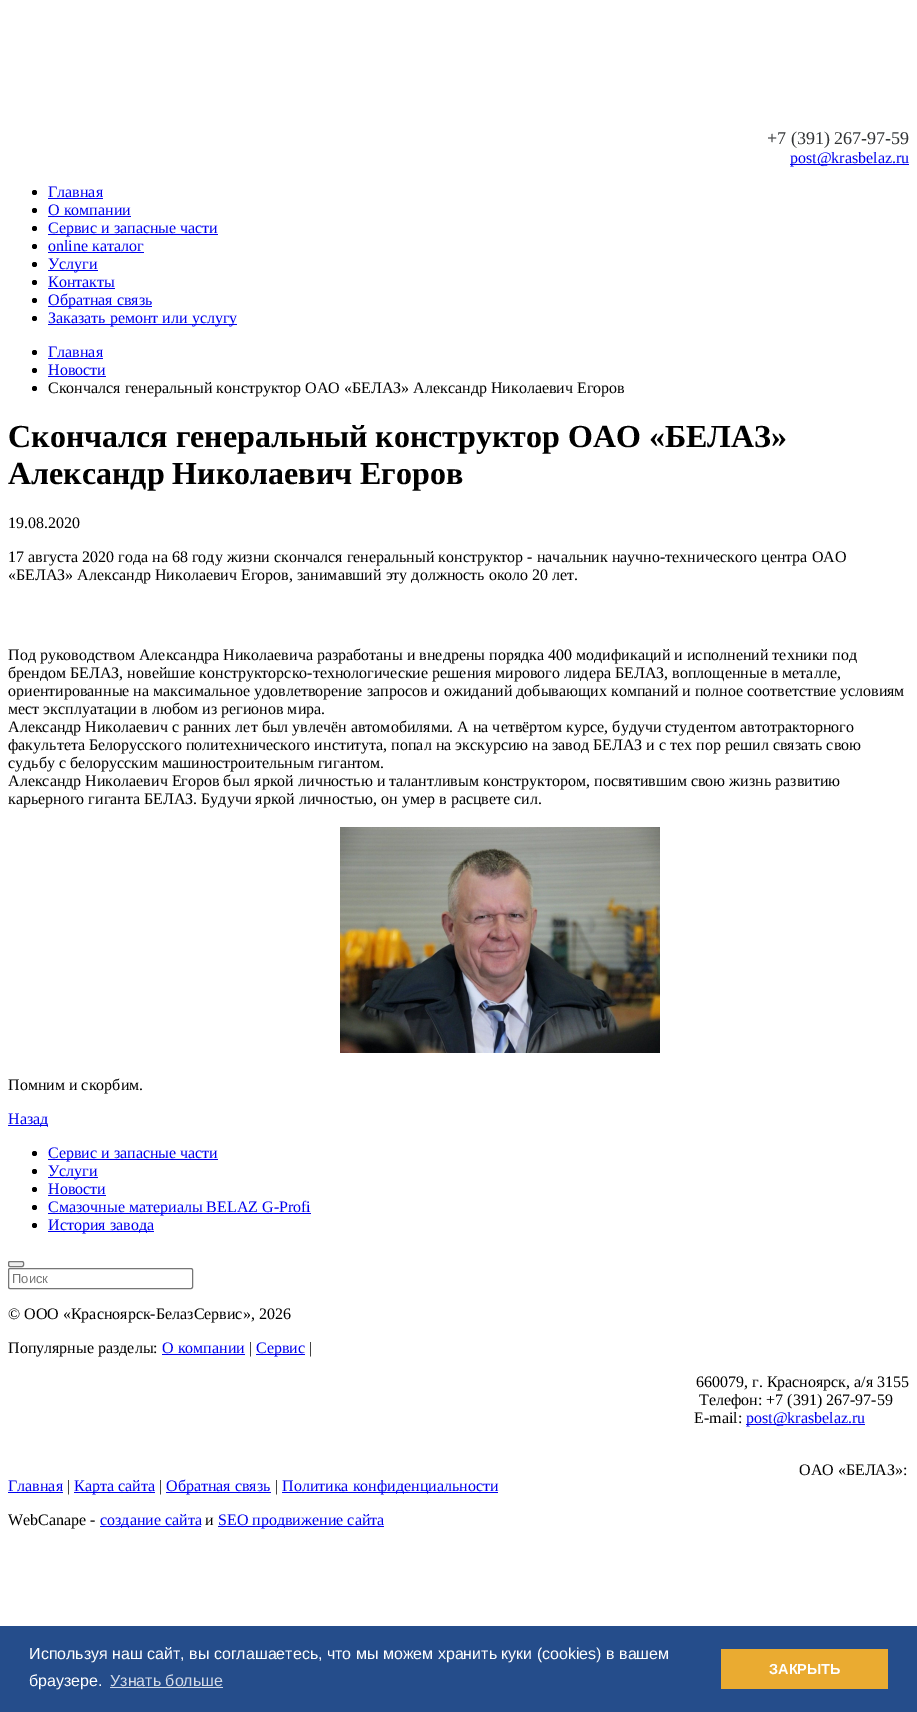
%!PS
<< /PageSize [917 1712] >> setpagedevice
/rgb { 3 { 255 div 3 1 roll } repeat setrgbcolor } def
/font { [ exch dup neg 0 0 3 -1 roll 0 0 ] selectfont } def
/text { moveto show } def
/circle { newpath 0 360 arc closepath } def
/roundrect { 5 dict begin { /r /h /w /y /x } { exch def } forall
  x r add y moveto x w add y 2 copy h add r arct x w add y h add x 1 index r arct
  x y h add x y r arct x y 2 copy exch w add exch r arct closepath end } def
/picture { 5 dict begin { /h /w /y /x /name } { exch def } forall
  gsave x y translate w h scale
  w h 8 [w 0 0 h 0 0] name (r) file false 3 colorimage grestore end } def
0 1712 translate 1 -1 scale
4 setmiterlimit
255 255 255 rgb
0 0 917 1712 rectfill
0 0 238 rgb
790 164 119 1 rectfill
0 0 0 rgb
34.5 192.5 2.5 circle fill
0 0 238 rgb
48 198 55 1 rectfill
0 0 0 rgb
34.5 210.5 2.5 circle fill
0 0 238 rgb
48 216 83 1 rectfill
0 0 0 rgb
34.5 228.5 2.5 circle fill
0 0 238 rgb
48 234 170 1 rectfill
0 0 0 rgb
34.5 246.5 2.5 circle fill
0 0 238 rgb
48 252 96 1 rectfill
0 0 0 rgb
34.5 264.5 2.5 circle fill
0 0 238 rgb
48 270 50 1 rectfill
0 0 0 rgb
34.5 282.5 2.5 circle fill
0 0 238 rgb
48 288 67 1 rectfill
0 0 0 rgb
34.5 300.5 2.5 circle fill
0 0 238 rgb
48 306 104 1 rectfill
0 0 0 rgb
34.5 318.5 2.5 circle fill
0 0 238 rgb
48 324 189 1 rectfill
0 0 0 rgb
34.5 352.5 2.5 circle fill
0 0 238 rgb
48 358 55 1 rectfill
0 0 0 rgb
34.5 370.5 2.5 circle fill
0 0 238 rgb
48 376 58 1 rectfill
0 0 0 rgb
34.5 388.5 2.5 circle fill
(img_01.rgb) 340 827 320 226 picture
0 0 238 rgb
8 1125 40 1 rectfill
0 0 0 rgb
34.5 1153.5 2.5 circle fill
0 0 238 rgb
48 1159 170 1 rectfill
0 0 0 rgb
34.5 1171.5 2.5 circle fill
0 0 238 rgb
48 1177 50 1 rectfill
0 0 0 rgb
34.5 1189.5 2.5 circle fill
0 0 238 rgb
48 1195 58 1 rectfill
0 0 0 rgb
34.5 1207.5 2.5 circle fill
0 0 238 rgb
48 1213 263 1 rectfill
0 0 0 rgb
34.5 1225.5 2.5 circle fill
0 0 238 rgb
48 1231 106 1 rectfill
239 239 239 rgb
8.5 1261.5 15 5 1.5 roundrect gsave fill grestore
118 118 118 rgb
stroke
8.5 1268.5 184 20 1.5 roundrect stroke
0 0 238 rgb
162 1354 83 1 rectfill
256 1354 49 1 rectfill
746 1424 119 1 rectfill
8 1492 55 1 rectfill
74 1492 81 1 rectfill
166 1492 105 1 rectfill
282 1492 216 1 rectfill
100 1526 101 1 rectfill
218 1526 166 1 rectfill
37 77 139 rgb
0 1626 917 86 rectfill
211 219 232 rgb
110 1687 113 1 rectfill
234 171 49 rgb
721 1649 167 40 rectfill
/LiberationSerif-Regular 18 font
49 51 53 rgb
(+7 \(391\) 267-97-59) 767 144 text
/LiberationSerif-Regular 16 font
0 0 238 rgb
(post@krasbelaz.ru) 790 163 text
(Главная) 48 197 text
(О компании) 48 215 text
(Сервис и запасные части) 48 233 text
(online каталог) 48 251 text
(Услуги) 48 269 text
(Контакты) 48 287 text
(Обратная связь) 48 305 text
(Заказать ремонт или услугу) 48 323 text
(Главная) 48 357 text
(Новости) 48 375 text
0 0 0 rgb
(Скончался генеральный конструктор ОАО «БЕЛАЗ» Александр Николаевич Егоров) 48 393 text
/LiberationSerif-Bold 32 font
(Скончался генеральный конструктор ОАО «БЕЛАЗ») 8 447 text
(Александр Николаевич Егоров) 8 484 text
/LiberationSerif-Regular 16 font
(19.08.2020) 8 528 text
(17 августа 2020 года на 68 году жизни скончался генеральный конструктор - начальник научно-технического центра ОАО) 8 562 text
(«БЕЛАЗ» Александр Николаевич Егоров, занимавший эту должность около 20 лет.) 8 580 text
(Под руководством Александра Николаевича разработаны и внедрены порядка 400 модификаций и исполнений техники под) 8 660 text
(брендом БЕЛАЗ, новейшие конструкторско-технологические решения мирового лидера БЕЛАЗ, воплощенные в металле,) 8 678 text
(ориентированные на максимальное удовлетворение запросов и ожиданий добывающих компаний и полное соответствие условиям) 8 696 text
(мест эксплуатации в любом из регионов мира.) 8 714 text
(Александр Николаевич с ранних лет был увлечён автомобилями. А на четвёртом курсе, будучи студентом автотракторного) 8 732 text
(факультета Белорусского политехнического института, попал на экскурсию на завод БЕЛАЗ и с тех пор решил связать свою) 8 750 text
(судьбу с белорусским машиностроительным гигантом.) 8 768 text
(Александр Николаевич Егоров был яркой личностью и талантливым конструктором, посвятившим свою жизнь развитию) 8 786 text
(карьерного гиганта БЕЛАЗ. Будучи яркой личностью, он умер в расцвете сил.) 8 804 text
(Помним и скорбим.) 8 1090 text
0 0 238 rgb
(Назад) 8 1124 text
(Сервис и запасные части) 48 1158 text
(Услуги) 48 1176 text
(Новости) 48 1194 text
(Смазочные материалы BELAZ G-Profi) 48 1212 text
(История завода) 48 1230 text
/LiberationSans-Regular 13 font
117 117 117 rgb
(Поиск) 12 1283 text
/LiberationSerif-Regular 16 font
0 0 0 rgb
(© ООО «Красноярск-БелазСервис», 2026) 8 1319 text
(Популярные разделы:) 8 1353 text
0 0 238 rgb
(О компании) 162 1353 text
0 0 0 rgb
(|) 249 1353 text
0 0 238 rgb
(Сервис) 256 1353 text
0 0 0 rgb
(|) 309 1353 text
(660079, г. Красноярск, а/я 3155) 696 1387 text
(Телефон: +7 \(391\) 267-97-59) 699 1405 text
(E-mail:) 694 1423 text
0 0 238 rgb
(post@krasbelaz.ru) 746 1423 text
0 0 0 rgb
(ОАО «БЕЛАЗ»:) 799 1475 text
0 0 238 rgb
(Главная) 8 1491 text
0 0 0 rgb
(|) 67 1491 text
0 0 238 rgb
(Карта сайта) 74 1491 text
0 0 0 rgb
(|) 159 1491 text
0 0 238 rgb
(Обратная связь) 166 1491 text
0 0 0 rgb
(|) 275 1491 text
0 0 238 rgb
(Политика конфиденциальности) 282 1491 text
0 0 0 rgb
(WebCanape -) 8 1525 text
0 0 238 rgb
(создание сайта) 100 1525 text
0 0 0 rgb
(и) 205 1525 text
0 0 238 rgb
(SEO продвижение сайта) 218 1525 text
/LiberationSans-Regular 16 font
255 255 255 rgb
(Используя наш сайт, вы соглашаетесь, что мы можем хранить куки \(cookies\) в вашем) 29 1659 text
(браузере.) 29 1686 text
211 219 232 rgb
(Узнать больше) 110 1686 text
/LiberationSans-Bold 14.5 font
255 255 255 rgb
(ЗАКРЫТЬ) 769 1674 text
showpage
